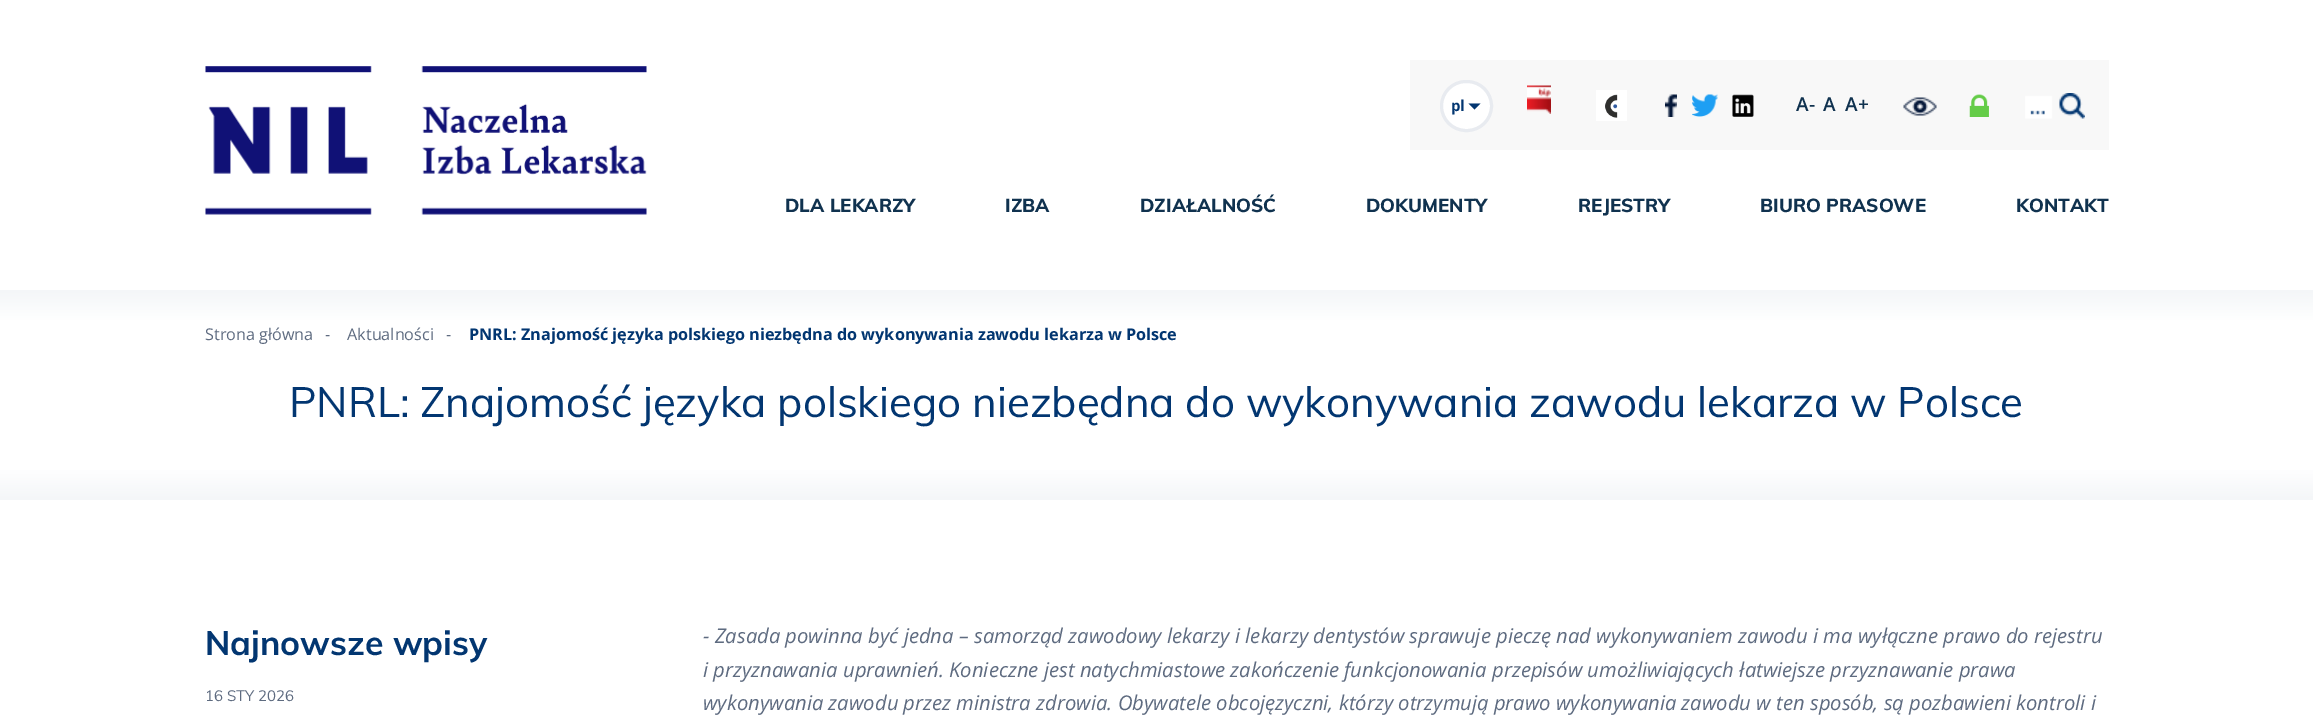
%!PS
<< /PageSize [2313 721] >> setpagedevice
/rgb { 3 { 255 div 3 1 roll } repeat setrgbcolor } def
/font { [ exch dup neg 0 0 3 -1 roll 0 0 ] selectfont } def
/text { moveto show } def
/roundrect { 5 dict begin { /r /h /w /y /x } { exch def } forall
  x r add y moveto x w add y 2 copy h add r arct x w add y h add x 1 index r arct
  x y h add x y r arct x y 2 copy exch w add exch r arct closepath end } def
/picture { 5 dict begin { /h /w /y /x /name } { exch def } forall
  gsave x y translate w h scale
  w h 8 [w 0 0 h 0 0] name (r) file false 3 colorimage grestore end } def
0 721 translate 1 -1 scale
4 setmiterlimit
255 255 255 rgb
0 0 2313 721 rectfill
(img_01.rgb) 205 66 442 149 picture
248 248 248 rgb
1410 60 699 90 rectfill
255 255 255 rgb
1441.5 81.5 50 49 24.5 roundrect gsave fill grestore
232 235 240 rgb
3 setlinewidth
stroke
2 54 113 rgb
1468.5 103.5 moveto 12 0 rlineto -6 6 rlineto closepath fill
(img_02.rgb) 1527 85 24 29 picture
(img_03.rgb) 1596 90 31 31 picture
(img_04.rgb) 1665 94 12 23 picture
(img_05.rgb) 1692 94 26 23 picture
(img_06.rgb) 1732 94 22 23 picture
(img_07.rgb) 1903 97 34 19 picture
(img_08.rgb) 1969 94 20 23 picture
(img_09.rgb) 2025 93 60 26 picture
gsave 0 290 moveto 2313 0 rlineto 0 210 rlineto -2313 0 rlineto closepath clip newpath
<< /ShadingType 2 /ColorSpace /DeviceRGB /Coords [1157 289 1157 500] /Extend [true true] /Function << /FunctionType 3 /Domain [0 1] /Functions [<< /FunctionType 2 /Domain [0 1] /C0 [0.957 0.965 0.973] /C1 [1 1 1] /N 1 >> << /FunctionType 2 /Domain [0 1] /C0 [1 1 1] /C1 [1 1 1] /N 1 >> << /FunctionType 2 /Domain [0 1] /C0 [1 1 1] /C1 [0.957 0.965 0.973] /N 1 >>] /Bounds [0.15 0.85] /Encode [0 1 0 1 0 1] >> >> shfill grestore
/OpenSans-Bold 15 font
(pl) 1451 111 text
/OpenSans-SemiBold 19 font
16 50 79 rgb
(A-) 1796 111 text
(A) 1823 111 text
(A+) 1845 111 text
/Muli-ExtraBold 18.75 font
(DLA LEKARZY) 785 212 text
(IZBA) 1005 212 text
(DZIAŁALNOŚĆ) 1140 212 text
(DOKUMENTY) 1366 212 text
(REJESTRY) 1578 212 text
(BIURO PRASOWE) 1760 212 text
(KONTAKT) 2016 212 text
/OpenSans-Regular 16.2 font
94 107 128 rgb
(Strona główna) 205 340 text
(-) 325 340 text
(Aktualności) 347 340 text
(-) 446 340 text
/OpenSans-Bold 16.2 font
2 54 113 rgb
(PNRL: Znajomość języka polskiego niezbędna do wykonywania zawodu lekarza w Polsce) 469 340 text
/Muli-Regular 42 font
(PNRL: Znajomość języka polskiego niezbędna do wykonywania zawodu lekarza w Polsce) 289 417 text
/Muli-Bold 33.75 font
(Najnowsze wpisy) 205 655 text
/Muli-Regular 15 font
94 107 128 rgb
(16 STY 2026) 205 701 text
/OpenSans-Italic 20.25 font
(- Zasada powinna być jedna – samorząd zawodowy lekarzy i lekarzy dentystów sprawuje pieczę nad wykonywaniem zawodu i ma wyłączne prawo do rejestru) 703 643 text
(i przyznawania uprawnień. Konieczne jest natychmiastowe zakończenie funkcjonowania przepisów umożliwiających łatwiejsze przyznawanie prawa) 703 677 text
(wykonywania zawodu przez ministra zdrowia. Obywatele obcojęzyczni, którzy otrzymują prawo wykonywania zawodu w ten sposób, są pozbawieni kontroli i) 703 710 text
showpage
